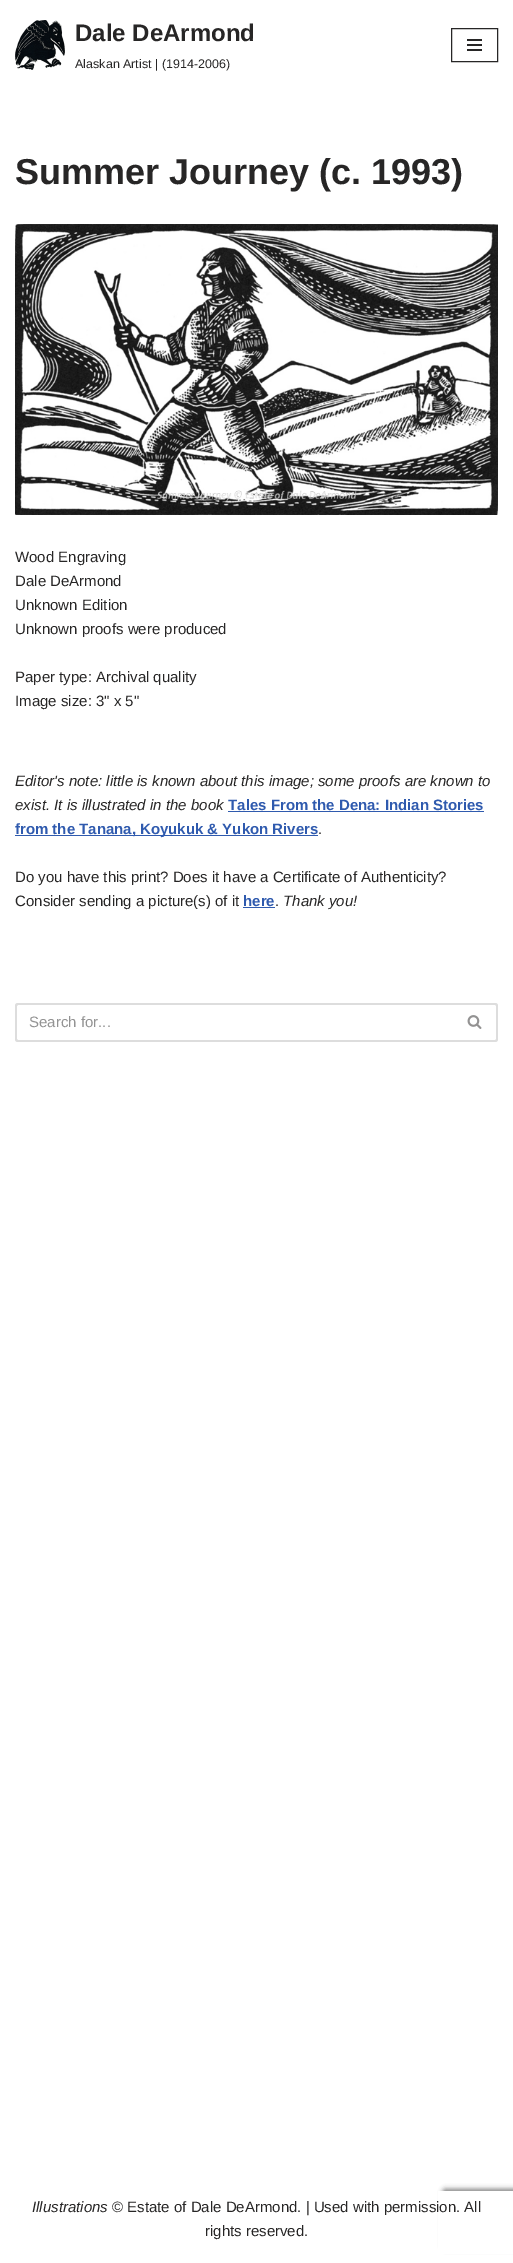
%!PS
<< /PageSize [513 2263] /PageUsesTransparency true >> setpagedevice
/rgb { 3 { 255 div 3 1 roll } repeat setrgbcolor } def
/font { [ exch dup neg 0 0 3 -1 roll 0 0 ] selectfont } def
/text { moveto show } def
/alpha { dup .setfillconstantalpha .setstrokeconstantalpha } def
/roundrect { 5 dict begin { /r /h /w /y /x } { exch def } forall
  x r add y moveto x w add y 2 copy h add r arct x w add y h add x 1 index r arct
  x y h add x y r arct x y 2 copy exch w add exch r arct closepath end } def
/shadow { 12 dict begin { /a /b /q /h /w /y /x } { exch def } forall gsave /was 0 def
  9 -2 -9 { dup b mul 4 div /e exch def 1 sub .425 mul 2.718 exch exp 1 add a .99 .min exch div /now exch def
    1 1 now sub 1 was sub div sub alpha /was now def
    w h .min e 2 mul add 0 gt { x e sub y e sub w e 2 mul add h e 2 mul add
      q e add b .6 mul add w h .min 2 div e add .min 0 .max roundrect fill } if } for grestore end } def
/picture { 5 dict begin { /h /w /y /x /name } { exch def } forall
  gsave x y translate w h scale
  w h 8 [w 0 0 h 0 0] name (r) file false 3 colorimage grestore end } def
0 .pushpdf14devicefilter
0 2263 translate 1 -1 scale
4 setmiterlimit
255 255 255 rgb
0 0 513 2263 rectfill
(img_01.rgb) 15 20 50 50 picture
39 38 38 rgb
451.5 28.5 46 33 rectstroke
467 39 15 2 rectfill
467 44 15 2 rectfill
467 49 15 2 rectfill
(img_02.rgb) 15 224 483 291 picture
47 90 174 rgb
228 811 256 1 rectfill
15 835 303 1 rectfill
243 907 32 1 rectfill
221 221 221 rgb
18 1003 moveto 435 0 rlineto 0 39 rlineto -435 0 rlineto -2 0 -3 -1 -3 -3 rcurveto 0 -33 rlineto 0 -2 1 -3 3 -3 rcurveto closepath 18 1005 moveto 435 0 rlineto 0 35 rlineto -435 0 rlineto -1 -1 rlineto 0 -33 rlineto closepath eofill
453 1003 moveto 42 0 rlineto 2 0 3 1 3 3 rcurveto 0 33 rlineto 0 2 -1 3 -3 3 rcurveto -42 0 rlineto closepath 453 1005 moveto 42 0 rlineto 1 0 1 0 1 1 rcurveto 0 33 rlineto 0 1 0 1 -1 1 rcurveto -42 0 rlineto closepath eofill
(img_03.rgb) 467 1015 15 14 picture
128 128 128 rgb
443 2189 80 60 2 2.5 1 shadow
255 255 255 rgb
438 2191 75 63 rectfill
/LiberationSans-Bold 24 font
39 38 38 rgb
(Dale DeArmond) 75 41 text
/LiberationSans-Regular 12.5 font
(Alaskan Artist | \(1914-2006\)) 75 68 text
/LiberationSans-Bold 36 font
(Summer Journey \(c. 1993\)) 15 184 text
/LiberationSans-Regular 15 font
(Wood Engraving) 15 562 text
(Dale DeArmond) 15 586 text
(Unknown Edition) 15 610 text
(Unknown proofs were produced) 15 634 text
(Paper type: Archival quality) 15 682 text
(Image size: 3" x 5") 15 706 text
/LiberationSans-Italic 15 font
(Editor's note: little is known about this image; some proofs are known to) 15 786 text
(exist. It is illustrated in the book) 15 810 text
/LiberationSans-Bold 15 font
47 90 174 rgb
(Tales From the Dena: Indian Stories) 228 810 text
(from the Tanana, Koyukuk & Yukon Rivers) 15 834 text
/LiberationSans-Regular 15 font
39 38 38 rgb
(.) 318 834 text
(Do you have this print? Does it have a Certificate of Authenticity?) 15 882 text
(Consider sending a picture\(s\) of it) 15 906 text
/LiberationSans-Bold 15 font
47 90 174 rgb
(here) 243 906 text
/LiberationSans-Regular 15 font
39 38 38 rgb
(.) 275 906 text
/LiberationSans-Italic 15 font
(Thank you!) 283 906 text
/LiberationSans-Regular 15 font
147 147 147 rgb
(Search for...) 29 1027 text
/LiberationSans-Italic 15 font
39 38 38 rgb
(Illustrations) 32 2212 text
/LiberationSans-Regular 15 font
(© Estate of Dale DeArmond. | Used with permission. All) 112 2212 text
(rights reserved.) 205 2236 text
.poppdf14devicefilter showpage
